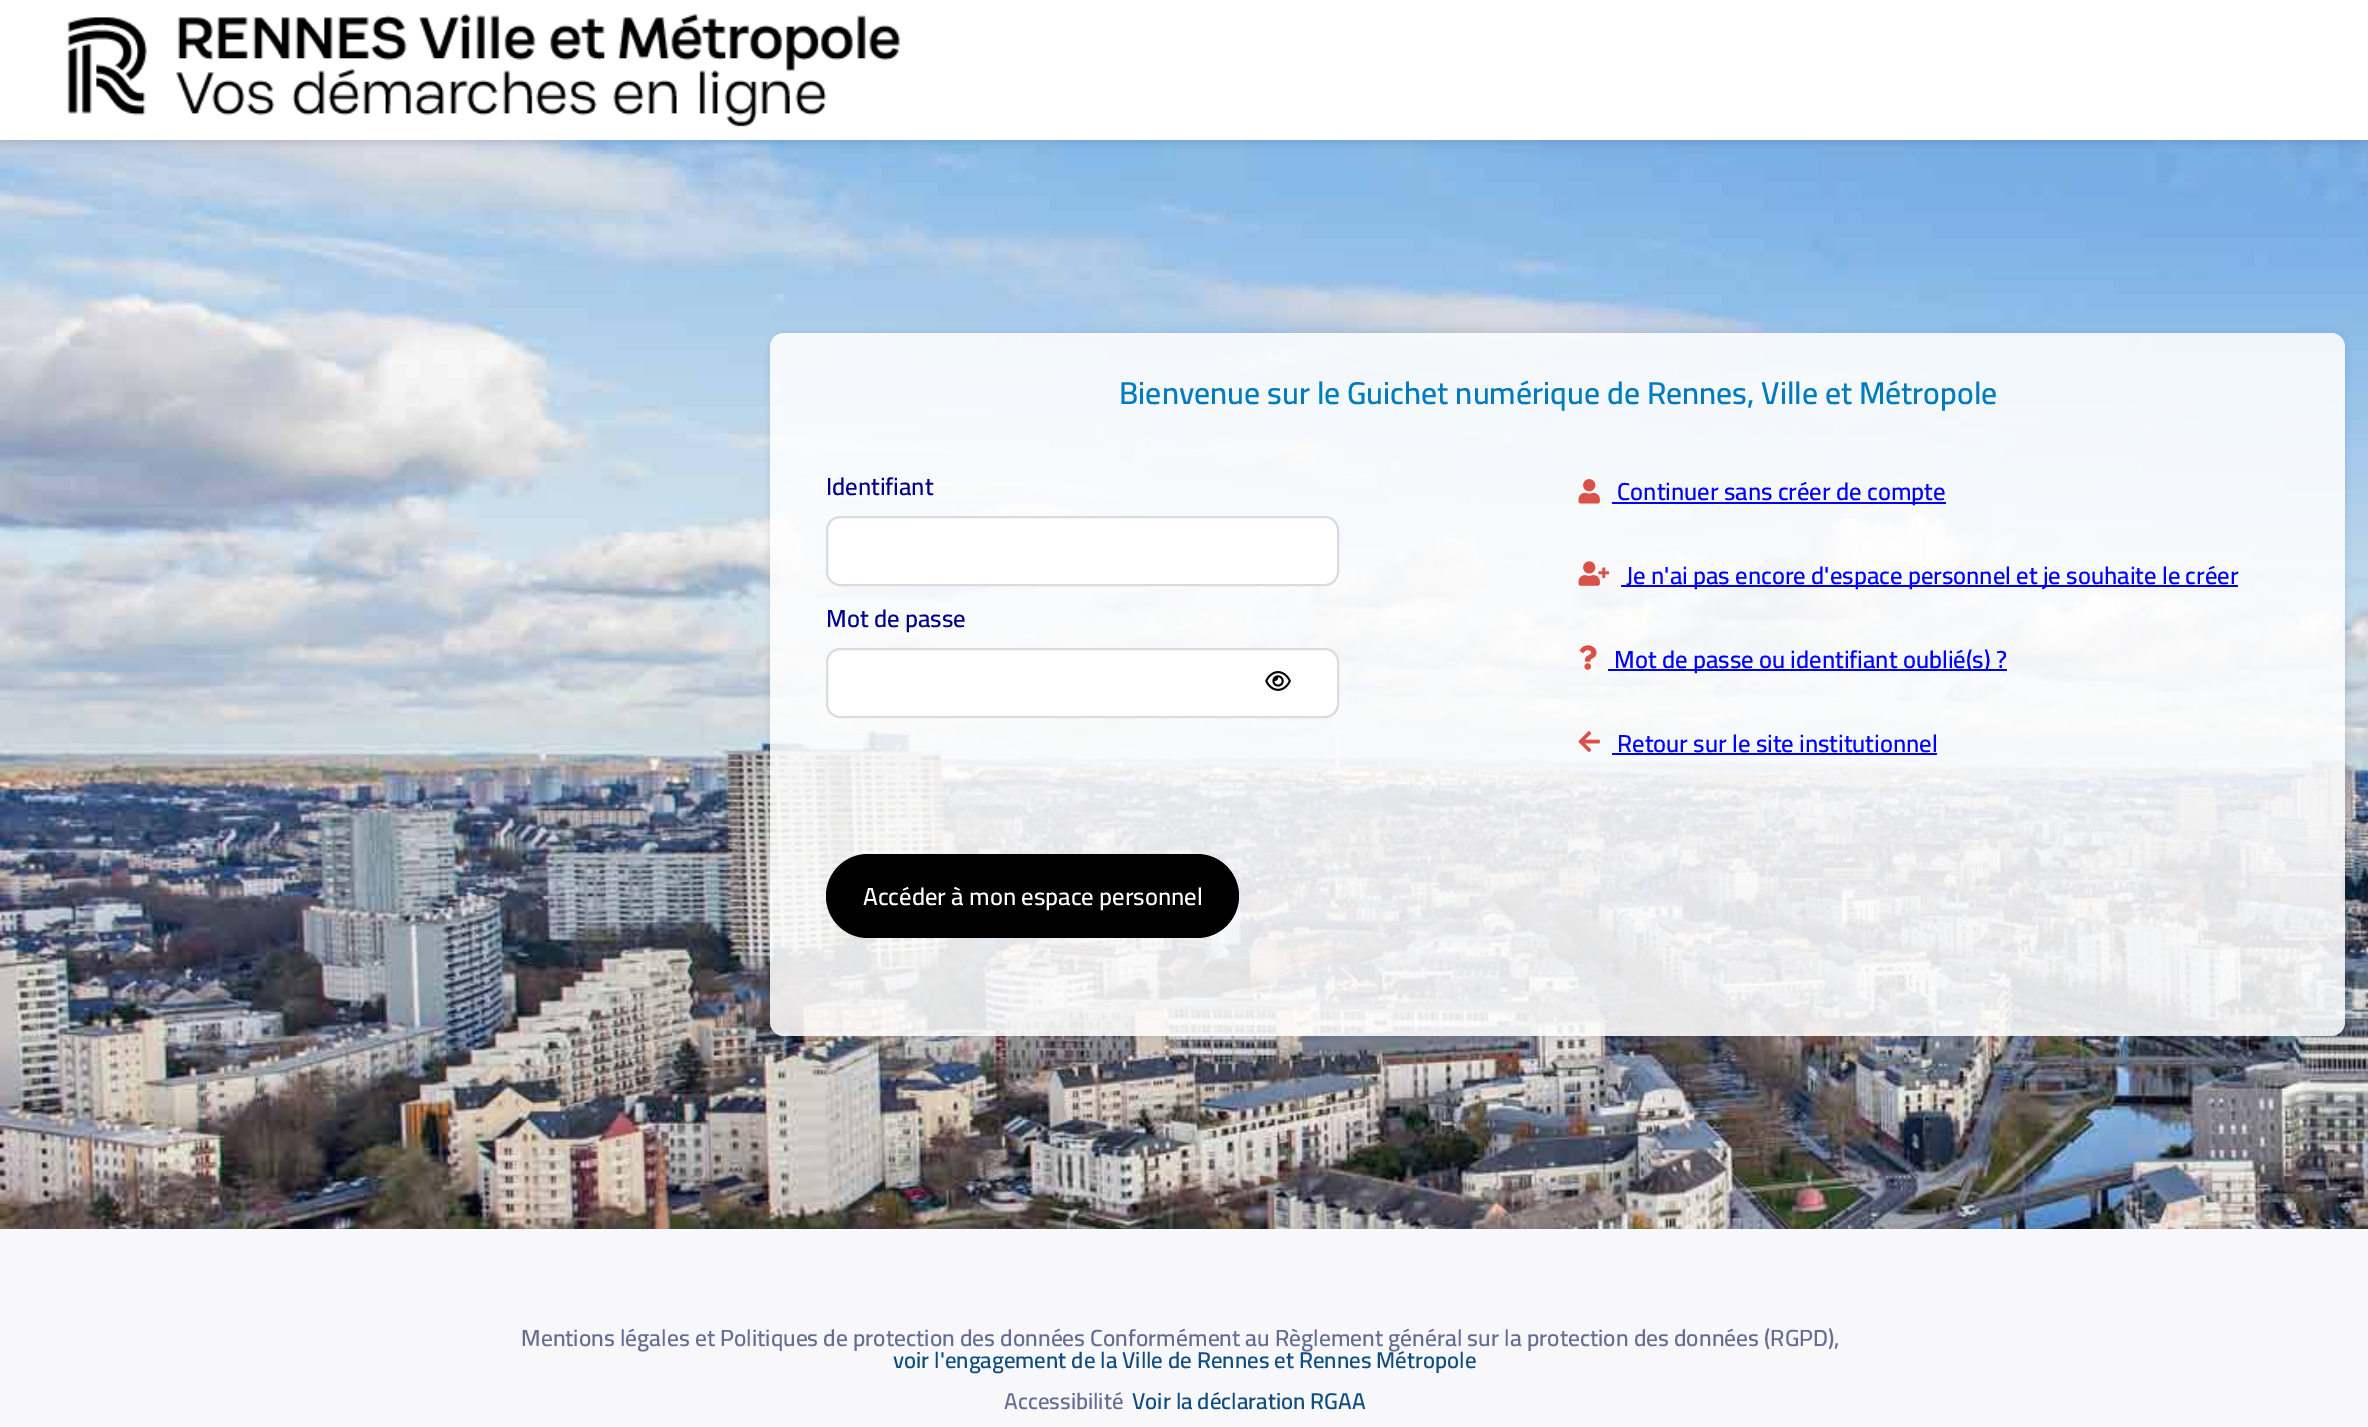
%!PS
<< /PageSize [2368 1427] /PageUsesTransparency true >> setpagedevice
/rgb { 3 { 255 div 3 1 roll } repeat setrgbcolor } def
/font { [ exch dup neg 0 0 3 -1 roll 0 0 ] selectfont } def
/text { moveto show } def
/alpha { dup .setfillconstantalpha .setstrokeconstantalpha } def
/roundrect { 5 dict begin { /r /h /w /y /x } { exch def } forall
  x r add y moveto x w add y 2 copy h add r arct x w add y h add x 1 index r arct
  x y h add x y r arct x y 2 copy exch w add exch r arct closepath end } def
/shadow { 12 dict begin { /a /b /q /h /w /y /x } { exch def } forall gsave /was 0 def
  9 -2 -9 { dup b mul 4 div /e exch def 1 sub .425 mul 2.718 exch exp 1 add a .99 .min exch div /now exch def
    1 1 now sub 1 was sub div sub alpha /was now def
    w h .min e 2 mul add 0 gt { x e sub y e sub w e 2 mul add h e 2 mul add
      q e add b .6 mul add w h .min 2 div e add .min 0 .max roundrect fill } if } for grestore end } def
/picture { 5 dict begin { /h /w /y /x /name } { exch def } forall
  gsave x y translate w h scale
  w h 8 [w 0 0 h 0 0] name (r) file false 3 colorimage grestore end } def
0 .pushpdf14devicefilter
0 1427 translate 1 -1 scale
4 setmiterlimit
255 255 255 rgb
0 0 2368 1427 rectfill
(img_01.rgb) 0 140 2368 1089 picture
0 0 45 rgb
0 2 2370 140 0 9 0.06 shadow
0 2 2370 140 0 3.5 0.1 shadow
255 255 255 rgb
0 0 2368 140 rectfill
(img_02.rgb) 67 13 833 114 picture
gsave
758 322 moveto 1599 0 rlineto 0 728 rlineto -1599 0 rlineto closepath 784 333 moveto 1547 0 rlineto 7.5 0 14 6.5 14 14 rcurveto 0 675 rlineto 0 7.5 -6.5 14 -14 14 rcurveto -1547 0 rlineto -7.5 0 -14 -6.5 -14 -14 rcurveto 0 -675 rlineto 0 -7.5 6.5 -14 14 -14 rcurveto closepath eoclip newpath
0 0 45 rgb
770 334 1575 704 14 3.5 0.1 shadow
grestore
0.87 alpha
770 333 1575 703 14 roundrect fill
1 alpha
827 517 511 68 13 roundrect gsave fill grestore
218 219 224 rgb
2 setlinewidth
stroke
255 255 255 rgb
827 649 511 68 13 roundrect gsave fill grestore
218 219 224 rgb
stroke
(img_03.rgb) 1265 671 26 20 picture
(img_04.rgb) 1578 479 22 25 picture
0 0 255 rgb
1612 502 334 2 rectfill
(img_05.rgb) 1578 561 32 25 picture
1621 585 617 2 rectfill
(img_06.rgb) 1579 645 18 25 picture
1608 669 399 2 rectfill
(img_07.rgb) 1578 731 22 21 picture
1612 753 325 2 rectfill
0 0 0 rgb
826 854 413 84 42 roundrect fill
248 248 251 rgb
0 1229 2368 198 rectfill
/Cairo-SemiBold 31.5 font
0 123 192 rgb
(Bienvenue sur le Guichet numérique de Rennes, Ville et Métropole) 1119 404 text
/Cairo-SemiBold 24.5 font
0 0 140 rgb
(Identifiant) 826 495 text
(Mot de passe) 826 627 text
0 0 255 rgb
(Continuer sans créer de compte) 1617 500 text
(Je n'ai pas encore d'espace personnel et je souhaite le créer) 1626 584 text
(Mot de passe ou identifiant oublié\(s\) ?) 1614 668 text
(Retour sur le site institutionnel) 1617 752 text
255 255 255 rgb
(Accéder à mon espace personnel) 863 905 text
/Cairo-SemiBold 23.33 font
102 109 146 rgb
(Mentions légales et Politiques de protection des données Conformément au Règlement général sur la protection des données \(RGPD\),) 521 1346 text
/Cairo-SemiBold 22.75 font
14 76 129 rgb
(voir l'engagement de la Ville de Rennes et Rennes Métropole) 893 1368 text
102 109 146 rgb
(Accessibilité) 1004 1409 text
14 76 129 rgb
(Voir la déclaration RGAA) 1132 1409 text
.poppdf14devicefilter showpage
